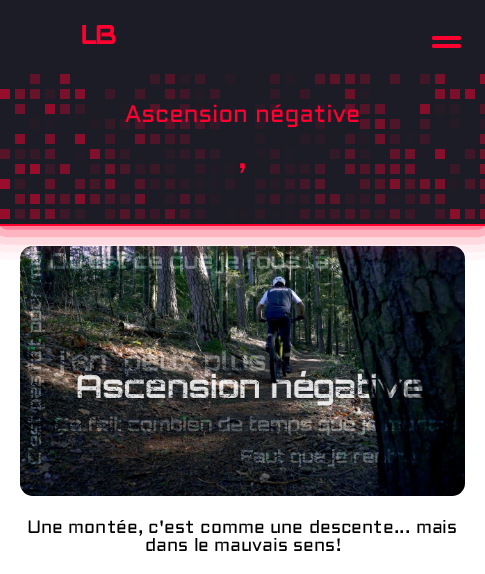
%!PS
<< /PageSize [485 574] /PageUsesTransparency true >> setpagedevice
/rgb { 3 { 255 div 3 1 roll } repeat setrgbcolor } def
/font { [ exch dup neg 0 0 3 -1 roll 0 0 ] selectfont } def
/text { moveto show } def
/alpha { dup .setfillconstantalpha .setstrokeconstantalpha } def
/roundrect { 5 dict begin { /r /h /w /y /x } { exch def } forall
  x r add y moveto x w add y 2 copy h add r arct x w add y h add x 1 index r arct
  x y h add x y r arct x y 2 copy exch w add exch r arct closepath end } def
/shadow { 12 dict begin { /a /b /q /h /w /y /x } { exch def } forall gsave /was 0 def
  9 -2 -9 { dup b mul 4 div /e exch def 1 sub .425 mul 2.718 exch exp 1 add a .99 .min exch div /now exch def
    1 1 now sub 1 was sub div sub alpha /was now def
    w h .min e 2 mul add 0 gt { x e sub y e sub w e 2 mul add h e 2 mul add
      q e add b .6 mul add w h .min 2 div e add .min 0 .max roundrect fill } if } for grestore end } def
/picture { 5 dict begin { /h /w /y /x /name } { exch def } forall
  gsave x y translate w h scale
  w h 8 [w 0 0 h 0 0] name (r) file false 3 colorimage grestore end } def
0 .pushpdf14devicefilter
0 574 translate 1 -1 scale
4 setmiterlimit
255 255 255 rgb
0 0 485 574 rectfill
(img_03.rgb) 20 246 445 250 picture
255 0 48 rgb
0 73 485 153 0 15 1 shadow
27 28 38 rgb
0 0 485 224 rectfill
(img_01.rgb) 82 25 34 19 picture
255 0 48 rgb
432 36 29 4 2 roundrect fill
432 44 29 4 2 roundrect fill
0 224 485 2 rectfill
/Aldrich-Regular 24 font
(Ascension négative) 125 122 text
/Aldrich-Regular 32 font
(,) 238 168 text
(img_02.rgb) 0 74 485 145 picture
/Aldrich-Regular 18 font
0 0 0 rgb
(Une montée, c'est comme une descente... mais) 27 533 text
(dans le mauvais sens!) 145 551 text
.poppdf14devicefilter showpage
